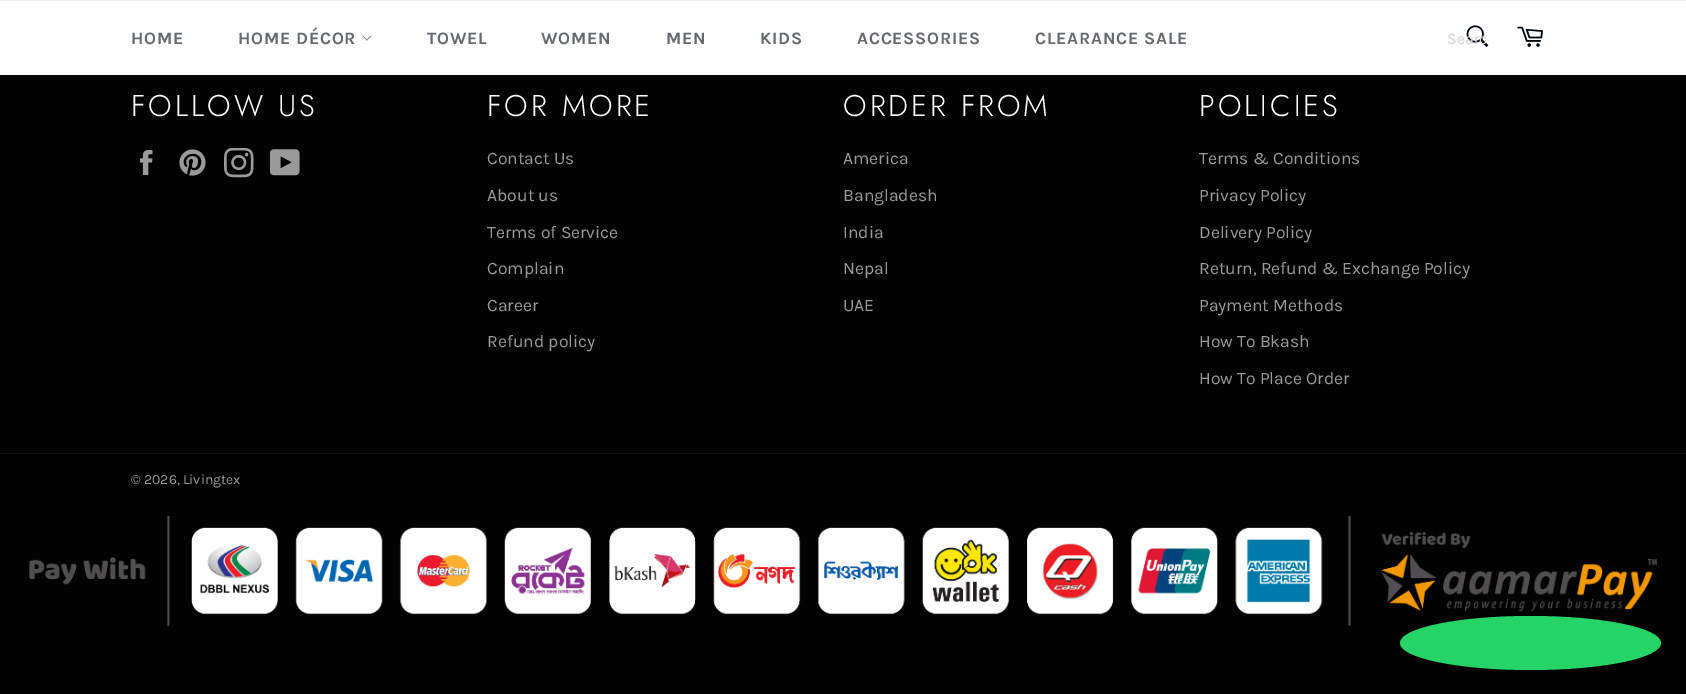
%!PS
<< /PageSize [1686 694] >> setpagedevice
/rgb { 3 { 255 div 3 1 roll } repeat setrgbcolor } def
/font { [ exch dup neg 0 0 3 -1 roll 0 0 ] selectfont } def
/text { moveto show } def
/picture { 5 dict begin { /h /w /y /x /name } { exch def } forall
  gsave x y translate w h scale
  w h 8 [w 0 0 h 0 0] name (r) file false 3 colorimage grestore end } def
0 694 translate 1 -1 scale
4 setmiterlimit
3 3 3 rgb
0 0 1686 694 rectfill
255 255 255 rgb
0 1 1686 74 rectfill
242 242 242 rgb
0 0 1686 1 rectfill
(img_01.rgb) 362 35 10 6 picture
(img_02.rgb) 1466 25 23 22 picture
(img_03.rgb) 1517 26 26 21 picture
(img_04.rgb) 140 150 13 25 picture
(img_05.rgb) 179 149 27 27 picture
(img_06.rgb) 224 148 30 30 picture
(img_07.rgb) 270 149 30 27 picture
16 16 16 rgb
0 453 1686 1 rectfill
(img_08.rgb) 29 515 1628 112 picture
37 211 102 rgb
1530.5 616 moveto 72 0 130.5 12 130.5 27 rcurveto 0 15 -58.5 27 -130.5 27 rcurveto -72 0 -130.5 -12 -130.5 -27 rcurveto 0 -15 58.5 -27 130.5 -27 rcurveto closepath fill
/Karla-Bold 17.5 font
102 106 111 rgb
131 44 moveto 0.75 0 (HOME) ashow
238 44 moveto 0.75 0 (HOME DÉCOR) ashow
427 44 moveto 0.75 0 (TOWEL) ashow
541 44 moveto 0.75 0 (WOMEN) ashow
666 44 moveto 0.75 0 (MEN) ashow
760 44 moveto 0.75 0 (KIDS) ashow
857 44 moveto 0.75 0 (ACCESSORIES) ashow
1035 44 moveto 0.75 0 (CLEARANCE SALE) ashow
/Karla-Regular 16 font
213 214 215 rgb
(Searc) 1447 44 text
/Jost-Light 30 font
255 255 255 rgb
131 116 moveto 3 0 (FOLLOW US) ashow
487 116 moveto 3 0 (FOR MORE) ashow
/Karla-Regular 17.5 font
154 154 154 rgb
(Contact Us) 487 164 text
(About us) 487 201 text
(Terms of Service) 487 238 text
(Complain) 487 274 text
(Career) 487 311 text
(Refund policy) 487 347 text
/Jost-Light 30 font
255 255 255 rgb
843 116 moveto 3 0 (ORDER FROM) ashow
/Karla-Regular 17.5 font
154 154 154 rgb
(America) 843 164 text
(Bangladesh) 843 201 text
(India) 843 238 text
(Nepal) 843 274 text
(UAE) 843 311 text
/Jost-Light 30 font
255 255 255 rgb
1199 116 moveto 3 0 (POLICIES) ashow
/Karla-Regular 17.5 font
154 154 154 rgb
(Terms & Conditions) 1199 164 text
(Privacy Policy) 1199 201 text
(Delivery Policy) 1199 238 text
(Return, Refund & Exchange Policy) 1199 274 text
(Payment Methods) 1199 311 text
(How To Bkash) 1199 347 text
(How To Place Order) 1199 384 text
/Karla-Regular 14 font
(© 2026, Livingtex) 131 484 text
showpage
